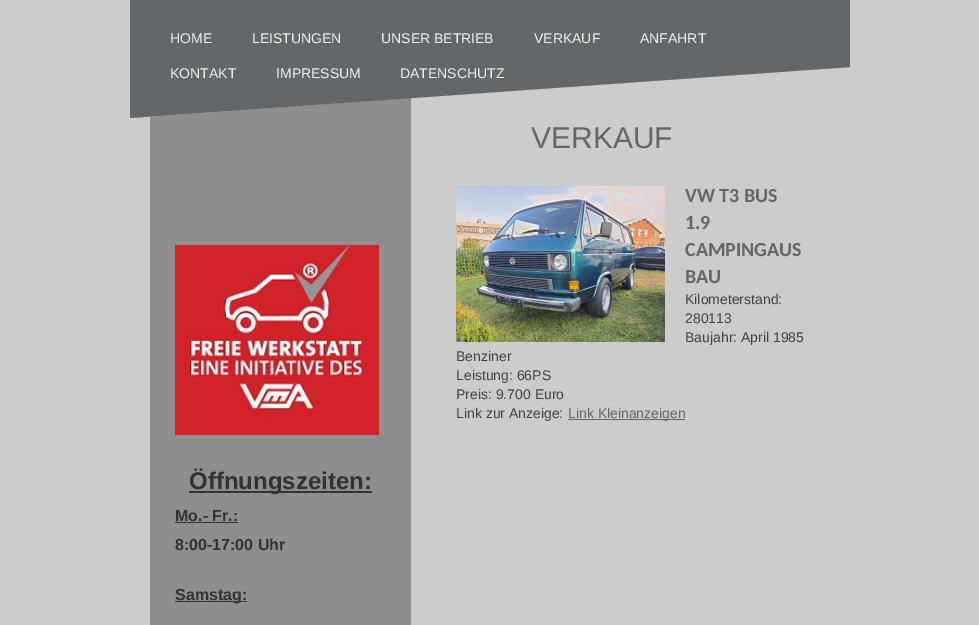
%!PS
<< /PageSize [979 625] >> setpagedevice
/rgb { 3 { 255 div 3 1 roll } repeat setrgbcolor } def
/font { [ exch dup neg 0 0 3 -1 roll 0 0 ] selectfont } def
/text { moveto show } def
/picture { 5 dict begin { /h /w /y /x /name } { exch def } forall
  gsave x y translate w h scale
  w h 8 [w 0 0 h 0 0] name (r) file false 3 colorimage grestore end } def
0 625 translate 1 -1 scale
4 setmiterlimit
204 204 204 rgb
0 0 979 625 rectfill
142 142 142 rgb
150 117 moveto 261 -19 rlineto 0 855 rlineto -261 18 rlineto closepath fill
100 102 103 rgb
130 -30 moveto 720 -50 rlineto 0 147 rlineto -720 51 rlineto closepath fill
(img_01.rgb) 456 186 209 156 picture
568 419 117 1 rectfill
(img_02.rgb) 175 245 204 190 picture
50 50 50 rgb
189 491 183 2 rectfill
175 522 63 1 rectfill
175 601 72 1 rectfill
/LiberationSans-Regular 14 font
240 240 240 rgb
(HOME) 170 43 text
(LEISTUNGEN) 252 43 text
(UNSER BETRIEB) 381 43 text
(VERKAUF) 534 43 text
(ANFAHRT) 640 43 text
(KONTAKT) 170 78 text
(IMPRESSUM) 276 78 text
(DATENSCHUTZ) 400 78 text
/LiberationSans-Regular 30 font
100 102 103 rgb
(VERKAUF) 531 148 text
/Carlito-Bold 20 font
(VW T3 BUS) 685 202 text
(1.9) 685 229 text
(CAMPINGAUS) 685 256 text
(BAU) 685 283 text
/LiberationSans-Regular 14 font
66 66 66 rgb
(Kilometerstand:) 685 304 text
(280113) 685 323 text
(Baujahr: April 1985) 685 342 text
(Benziner) 456 361 text
(Leistung: 66PS) 456 380 text
(Preis: 9.700 Euro) 456 399 text
(Link zur Anzeige:) 456 418 text
100 102 103 rgb
(Link Kleinanzeigen) 568 418 text
/LiberationSans-Bold 24 font
50 50 50 rgb
(Öffnungszeiten:) 189 489 text
/LiberationSans-Bold 16 font
(Mo.- Fr.:) 175 521 text
(8:00-17:00 Uhr) 175 550 text
(Samstag:) 175 600 text
showpage
